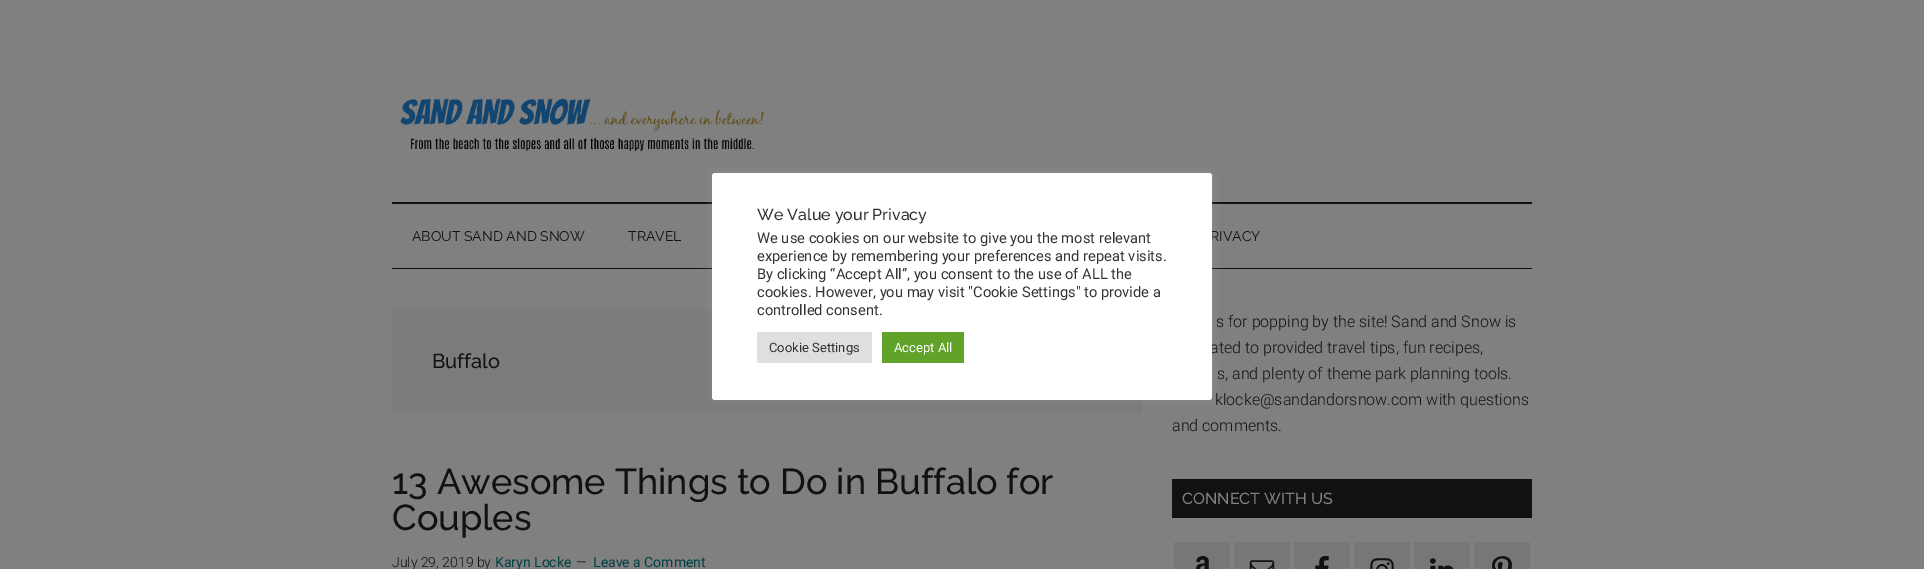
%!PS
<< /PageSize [1924 569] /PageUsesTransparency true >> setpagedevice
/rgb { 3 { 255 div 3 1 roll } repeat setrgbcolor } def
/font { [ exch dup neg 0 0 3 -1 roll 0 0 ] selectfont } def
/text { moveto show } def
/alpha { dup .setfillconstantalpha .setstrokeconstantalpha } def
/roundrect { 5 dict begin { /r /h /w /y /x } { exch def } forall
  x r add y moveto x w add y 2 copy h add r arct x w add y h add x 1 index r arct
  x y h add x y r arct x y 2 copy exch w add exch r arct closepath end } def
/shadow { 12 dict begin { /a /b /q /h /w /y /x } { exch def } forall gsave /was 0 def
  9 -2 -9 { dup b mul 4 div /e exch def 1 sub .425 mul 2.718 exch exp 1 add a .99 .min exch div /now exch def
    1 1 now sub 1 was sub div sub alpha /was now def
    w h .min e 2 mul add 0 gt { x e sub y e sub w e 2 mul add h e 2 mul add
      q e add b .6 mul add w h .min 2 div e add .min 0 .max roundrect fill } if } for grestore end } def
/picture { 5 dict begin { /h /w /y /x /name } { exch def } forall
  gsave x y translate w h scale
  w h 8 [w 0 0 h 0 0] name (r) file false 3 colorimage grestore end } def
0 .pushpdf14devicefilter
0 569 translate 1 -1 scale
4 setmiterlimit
128 128 128 rgb
0 0 1924 569 rectfill
17 17 17 rgb
392 202 1140 2 rectfill
392 268 1140 1 rectfill
123 123 123 rgb
392 309 750 104 rectfill
172 171 171 rgb
712 172 500 227 3 5 0.3 shadow
(img_01.rgb) 400 98 364 54 picture
17 17 17 rgb
1172 479 360 39 rectfill
119 119 119 rgb
1174 542 56 27 rectfill
(img_02.rgb) 1195 556 14 13 picture
1234 542 56 27 rectfill
(img_03.rgb) 1249 560 26 9 picture
1294 542 56 27 rectfill
(img_04.rgb) 1315 556 14 13 picture
1354 542 56 27 rectfill
(img_05.rgb) 1370 558 24 11 picture
1414 542 56 27 rectfill
(img_06.rgb) 1430 558 24 11 picture
1474 542 56 27 rectfill
(img_07.rgb) 1492 556 20 13 picture
/Raleway-Regular 14 font
17 17 17 rgb
(ABOUT SAND AND SNOW) 412 241 text
(TRAVEL) 628 241 text
(RIVACY) 1210 241 text
/Raleway-Medium 20 font
(Buffalo) 432 368 text
/Raleway-Medium 36 font
(13 Awesome Things to Do in Buffalo for) 392 494 text
(Couples) 392 530 text
/Roboto-Light 14 font
(July 29, 2019 by) 392 567 text
/Roboto-Regular 14 font
0 65 67 rgb
(Karyn Locke) 495 567 text
/Roboto-Light 14 font
17 17 17 rgb
(—) 576 567 text
/Roboto-Regular 14 font
0 65 67 rgb
(Leave a Comment) 593 567 text
/Roboto-Light 16 font
17 17 17 rgb
(s for popping by the site! Sand and Snow is) 1216 327 text
(ated to provided travel tips, fun recipes,) 1210 353 text
255 255 255 rgb
712 173 500 227 3 roundrect fill
97 162 41 rgb
882 332 82 31 rectfill
/Roboto-Regular 13 font
255 255 255 rgb
(Accept All) 894 352 text
222 223 224 rgb
757 332 115 31 rectfill
51 51 51 rgb
(Cookie Settings) 769 352 text
/Roboto-Regular 14.7 font
(controlled consent.) 757 315 text
(cookies. However, you may visit "Cookie Settings" to provide a) 757 297 text
(By clicking “Accept All”, you consent to the use of ALL the) 757 279 text
(experience by remembering your preferences and repeat visits.) 757 261 text
(We use cookies on our website to give you the most relevant) 757 243 text
/Raleway-Medium 16 font
(We Value your Privacy) 757 220 text
/Roboto-Light 16 font
17 17 17 rgb
(s, and plenty of theme park planning tools.) 1217 379 text
(klocke@sandandorsnow.com with questions) 1215 405 text
(and comments.) 1172 431 text
/Raleway-Medium 16 font
128 128 128 rgb
(CONNECT WITH US) 1182 504 text
.poppdf14devicefilter showpage
